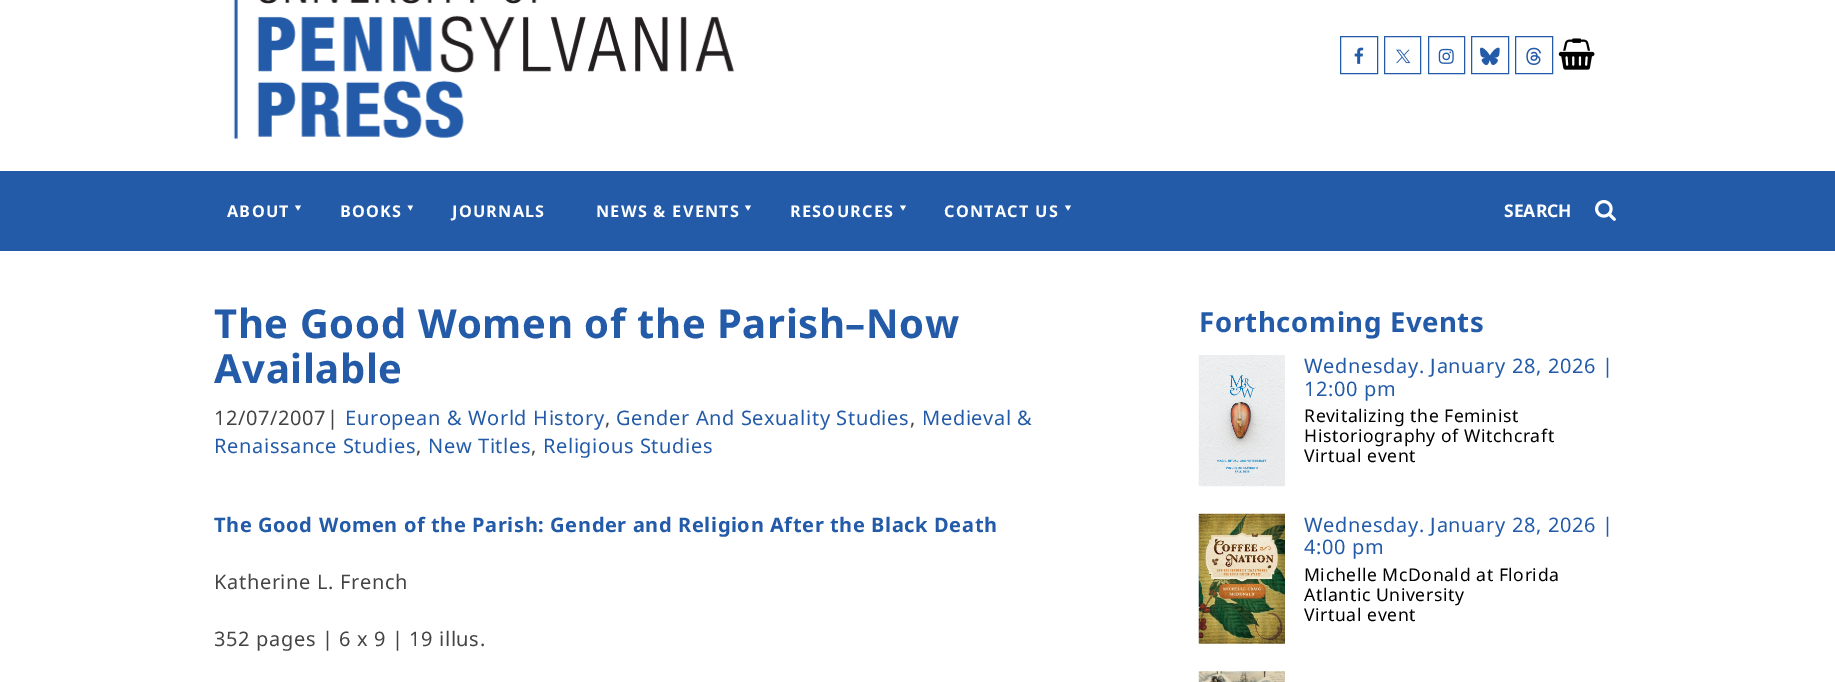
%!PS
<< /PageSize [1835 682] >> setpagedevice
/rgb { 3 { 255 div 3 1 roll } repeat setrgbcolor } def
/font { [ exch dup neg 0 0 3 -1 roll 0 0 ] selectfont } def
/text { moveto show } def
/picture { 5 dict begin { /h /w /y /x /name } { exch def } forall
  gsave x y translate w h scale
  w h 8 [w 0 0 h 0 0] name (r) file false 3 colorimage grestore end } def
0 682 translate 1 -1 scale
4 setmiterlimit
255 255 255 rgb
0 0 1835 682 rectfill
(img_01.rgb) 233 0 501 139 picture
35 91 168 rgb
1340.5 36.5 37 37 rectstroke
(img_02.rgb) 1354 47 10 17 picture
1384.5 36.5 36 37 rectstroke
(img_03.rgb) 1396 49 15 15 picture
1428.5 36.5 36 37 rectstroke
(img_04.rgb) 1438 48 16 16 picture
1471.5 36.5 37 37 rectstroke
(img_05.rgb) 1480 47 20 19 picture
1515.5 36.5 37 37 rectstroke
(img_06.rgb) 1526 47 16 18 picture
(img_07.rgb) 1558 38 37 32 picture
0 171 1835 80 rectfill
255 255 255 rgb
301 205.5 moveto -3 5 rlineto -3 -5 rlineto closepath fill
413 205.5 moveto -2.5 5 rlineto -3 -5 rlineto closepath fill
751 205.5 moveto -3 5 rlineto -3 -5 rlineto closepath fill
906 205.5 moveto -3 5 rlineto -3 -5 rlineto closepath fill
1071 205.5 moveto -3 5 rlineto -3 -5 rlineto closepath fill
(img_08.rgb) 1595 200 21 21 picture
(img_09.rgb) 1198 355 87 132 picture
(img_10.rgb) 1198 513 87 131 picture
(img_11.rgb) 1198 671 87 11 picture
/NotoSans-Bold 16.25 font
227 217 moveto 1.25 0 (ABOUT) ashow
340 217 moveto 1.25 0 (BOOKS) ashow
452 217 moveto 1.25 0 (JOURNALS) ashow
596 217 moveto 1.25 0 (NEWS & EVENTS) ashow
790 217 moveto 1.25 0 (RESOURCES) ashow
944 217 moveto 1.25 0 (CONTACT US) ashow
/NotoSans-Bold 17.5 font
(SEARCH) 1504 217 text
/NotoSans-Bold 40 font
35 91 168 rgb
214 338 moveto 0.62 0 (The Good Women of the Parish–Now) ashow
214 383 moveto 0.62 0 (Available) ashow
/NotoSans-Regular 20 font
68 68 68 rgb
214 425 moveto 0.62 0 (12/07/2007|) ashow
35 91 168 rgb
345 425 moveto 0.62 0 (European & World History) ashow
68 68 68 rgb
605 425 moveto 0.62 0 (,) ashow
35 91 168 rgb
616 425 moveto 0.62 0 (Gender And Sexuality Studies) ashow
68 68 68 rgb
910 425 moveto 0.62 0 (,) ashow
35 91 168 rgb
922 425 moveto 0.62 0 (Medieval &) ashow
214 453 moveto 0.62 0 (Renaissance Studies) ashow
68 68 68 rgb
416 453 moveto 0.62 0 (,) ashow
35 91 168 rgb
428 453 moveto 0.62 0 (New Titles) ashow
68 68 68 rgb
531 453 moveto 0.62 0 (,) ashow
35 91 168 rgb
543 453 moveto 0.62 0 (Religious Studies) ashow
/NotoSans-Bold 20 font
214 532 moveto 0.62 0 (The Good Women of the Parish: Gender and Religion After the Black Death) ashow
/NotoSans-Regular 20 font
68 68 68 rgb
214 589 moveto 0.62 0 (Katherine L. French) ashow
214 646 moveto 0.62 0 (352 pages | 6 x 9 | 19 illus.) ashow
/NotoSans-Bold 27.5 font
35 91 168 rgb
1199 332 moveto 0.62 0 (Forthcoming Events) ashow
/NotoSans-Regular 20 font
1304 373 moveto 0.62 0 (Wednesday. January 28, 2026 |) ashow
1304 396 moveto 0.62 0 (12:00 pm) ashow
/NotoSans-Regular 17.5 font
0 0 0 rgb
1304 422 moveto 0.62 0 (Revitalizing the Feminist) ashow
1304 442 moveto 0.62 0 (Historiography of Witchcraft) ashow
1304 462 moveto 0.62 0 (Virtual event) ashow
/NotoSans-Regular 20 font
35 91 168 rgb
1304 532 moveto 0.62 0 (Wednesday. January 28, 2026 |) ashow
1304 554 moveto 0.62 0 (4:00 pm) ashow
/NotoSans-Regular 17.5 font
0 0 0 rgb
1304 581 moveto 0.62 0 (Michelle McDonald at Florida) ashow
1304 601 moveto 0.62 0 (Atlantic University) ashow
1304 621 moveto 0.62 0 (Virtual event) ashow
showpage
